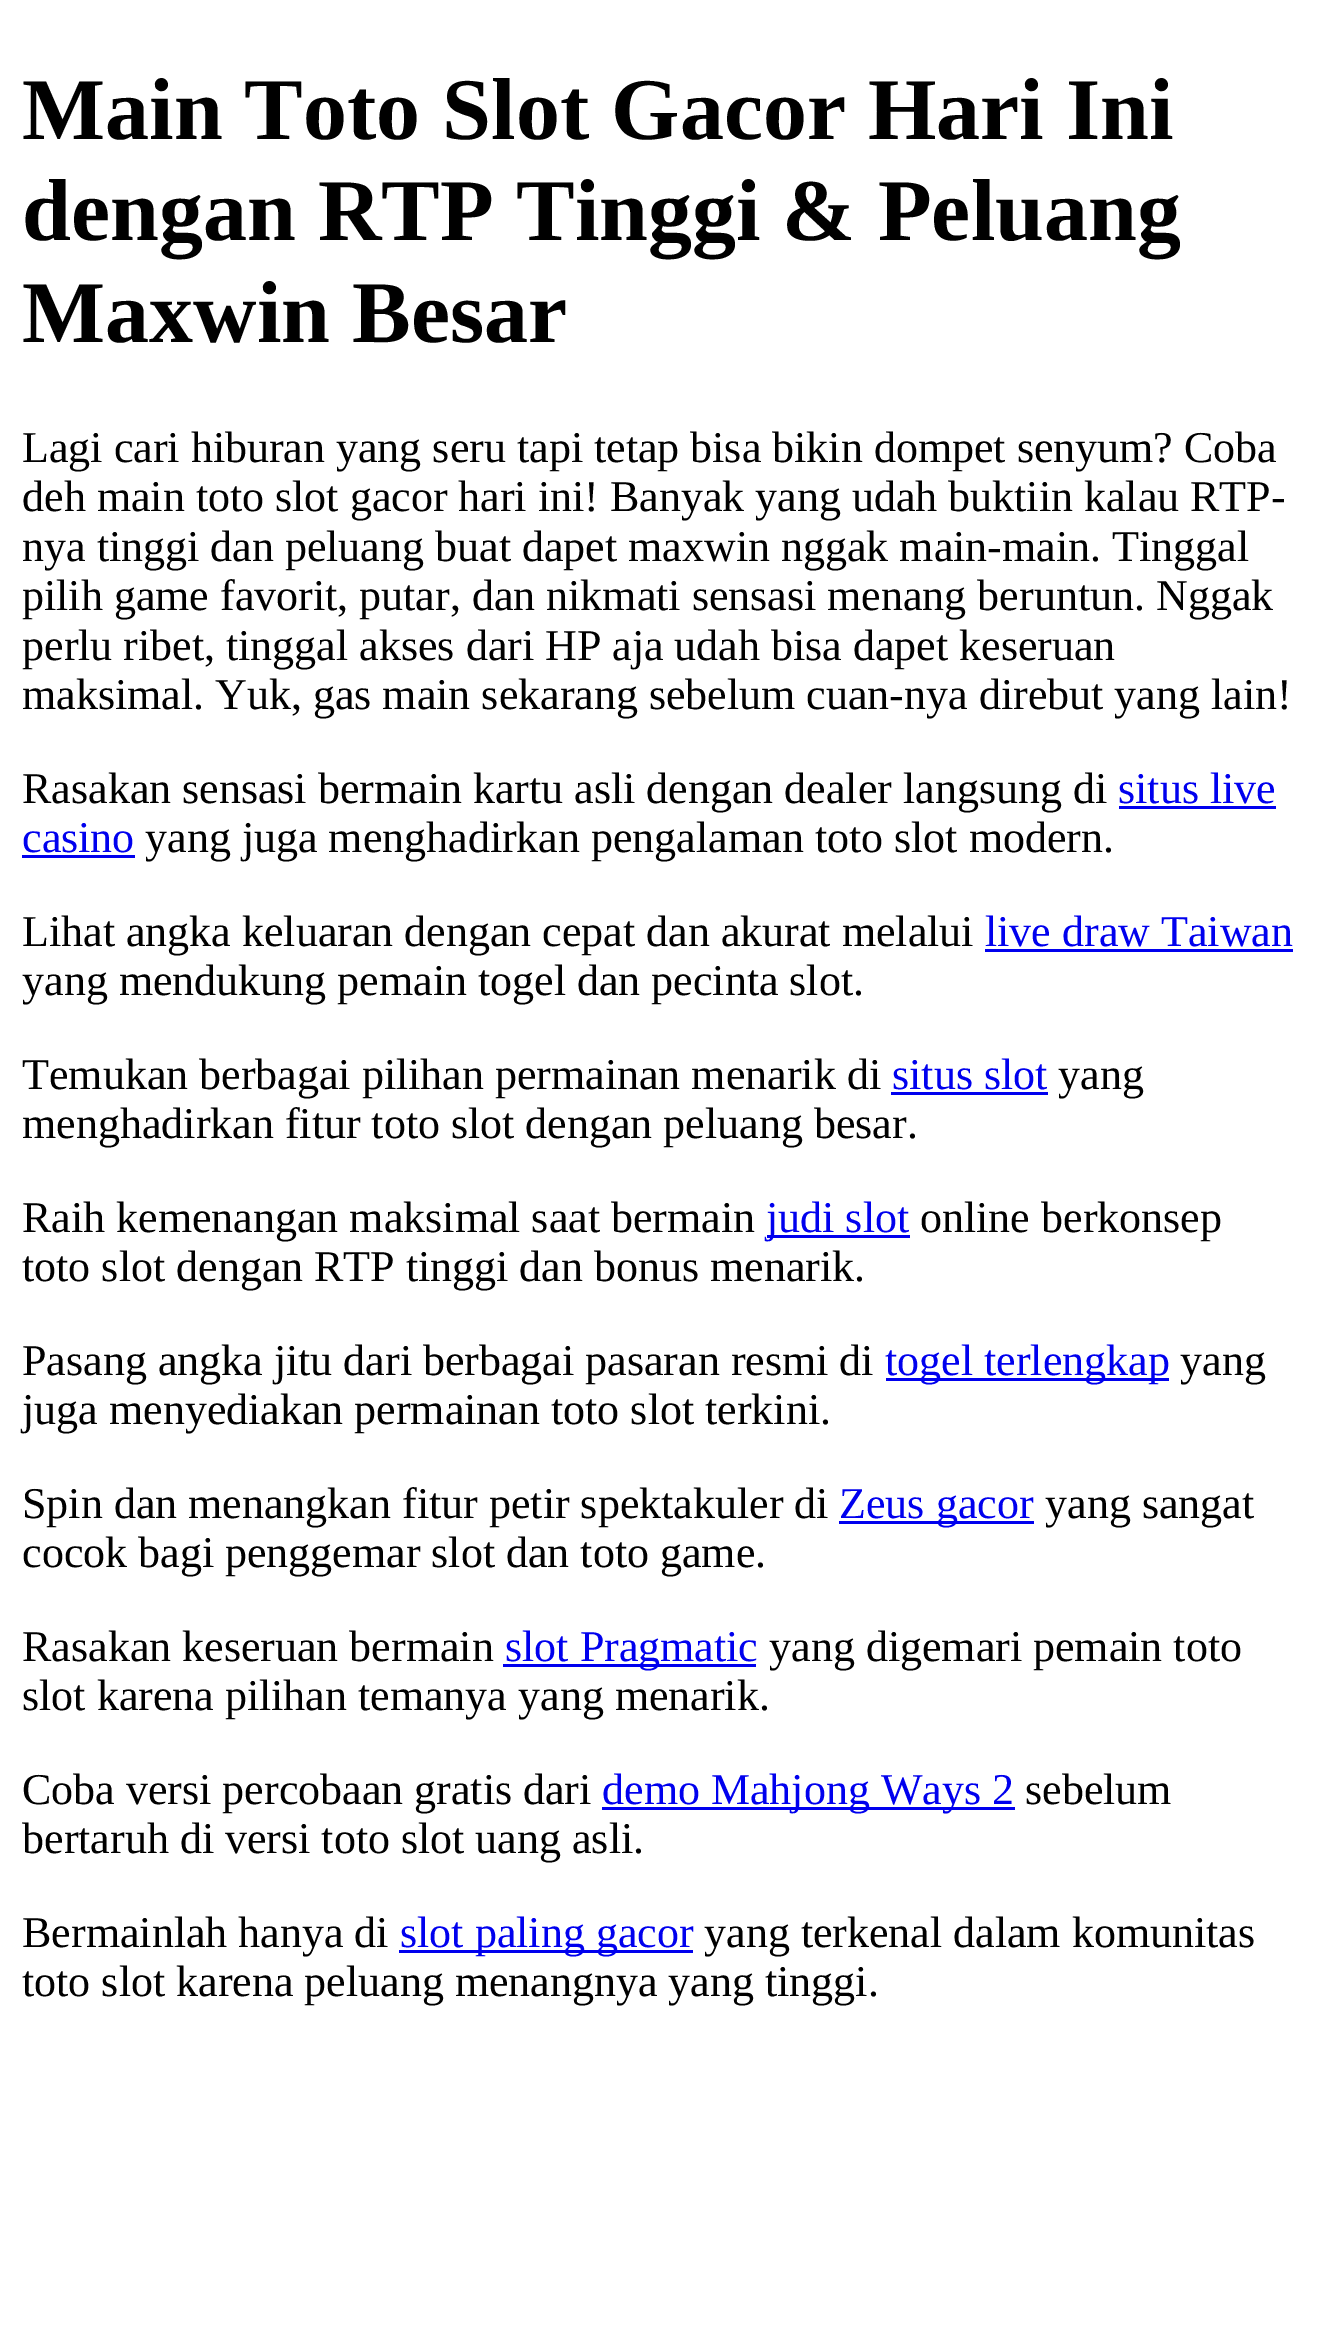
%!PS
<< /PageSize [1320 2346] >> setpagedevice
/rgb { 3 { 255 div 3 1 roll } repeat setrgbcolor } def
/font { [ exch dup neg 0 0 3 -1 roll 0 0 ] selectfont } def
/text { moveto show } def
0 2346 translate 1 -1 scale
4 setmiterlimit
255 255 255 rgb
0 0 1320 2346 rectfill
0 0 238 rgb
1119 806 157 3 rectfill
22 855 113 3 rectfill
985 949 308 3 rectfill
891 1092 157 3 rectfill
767 1235 143 3 rectfill
886 1378 283 3 rectfill
839 1521 195 3 rectfill
503 1664 253 3 rectfill
602 1807 413 3 rectfill
399 1950 294 3 rectfill
/LiberationSerif-Bold 88 font
0 0 0 rgb
(Main Toto Slot Gacor Hari Ini) 22 139 text
(dengan RTP Tinggi & Peluang) 22 240 text
(Maxwin Besar) 22 342 text
/LiberationSerif-Regular 44 font
(Lagi cari hiburan yang seru tapi tetap bisa bikin dompet senyum? Coba) 22 462 text
(deh main toto slot gacor hari ini! Banyak yang udah buktiin kalau RTP-) 22 511 text
(nya tinggi dan peluang buat dapet maxwin nggak main-main. Tinggal) 22 561 text
(pilih game favorit, putar, dan nikmati sensasi menang beruntun. Nggak) 22 610 text
(perlu ribet, tinggal akses dari HP aja udah bisa dapet keseruan) 22 660 text
(maksimal. Yuk, gas main sekarang sebelum cuan-nya direbut yang lain!) 22 709 text
(Rasakan sensasi bermain kartu asli dengan dealer langsung di) 22 803 text
0 0 238 rgb
(situs live) 1118 803 text
(casino) 22 852 text
0 0 0 rgb
(yang juga menghadirkan pengalaman toto slot modern.) 145 852 text
(Lihat angka keluaran dengan cepat dan akurat melalui) 22 946 text
0 0 238 rgb
(live draw Taiwan) 985 946 text
0 0 0 rgb
(yang mendukung pemain togel dan pecinta slot.) 22 995 text
(Temukan berbagai pilihan permainan menarik di) 22 1089 text
0 0 238 rgb
(situs slot) 892 1089 text
0 0 0 rgb
(yang) 1058 1089 text
(menghadirkan fitur toto slot dengan peluang besar.) 22 1138 text
(Raih kemenangan maksimal saat bermain) 22 1232 text
0 0 238 rgb
(judi slot) 766 1232 text
0 0 0 rgb
(online berkonsep) 920 1232 text
(toto slot dengan RTP tinggi dan bonus menarik.) 22 1281 text
(Pasang angka jitu dari berbagai pasaran resmi di) 22 1375 text
0 0 238 rgb
(togel terlengkap) 885 1375 text
0 0 0 rgb
(yang) 1180 1375 text
(juga menyediakan permainan toto slot terkini.) 22 1424 text
(Spin dan menangkan fitur petir spektakuler di) 22 1518 text
0 0 238 rgb
(Zeus gacor) 839 1518 text
0 0 0 rgb
(yang sangat) 1045 1518 text
(cocok bagi penggemar slot dan toto game.) 22 1567 text
(Rasakan keseruan bermain) 22 1661 text
0 0 238 rgb
(slot Pragmatic) 505 1661 text
0 0 0 rgb
(yang digemari pemain toto) 769 1661 text
(slot karena pilihan temanya yang menarik.) 22 1710 text
(Coba versi percobaan gratis dari) 22 1804 text
0 0 238 rgb
(demo Mahjong Ways 2) 602 1804 text
0 0 0 rgb
(sebelum) 1025 1804 text
(bertaruh di versi toto slot uang asli.) 22 1853 text
(Bermainlah hanya di) 22 1947 text
0 0 238 rgb
(slot paling gacor) 400 1947 text
0 0 0 rgb
(yang terkenal dalam komunitas) 704 1947 text
(toto slot karena peluang menangnya yang tinggi.) 22 1996 text
showpage
